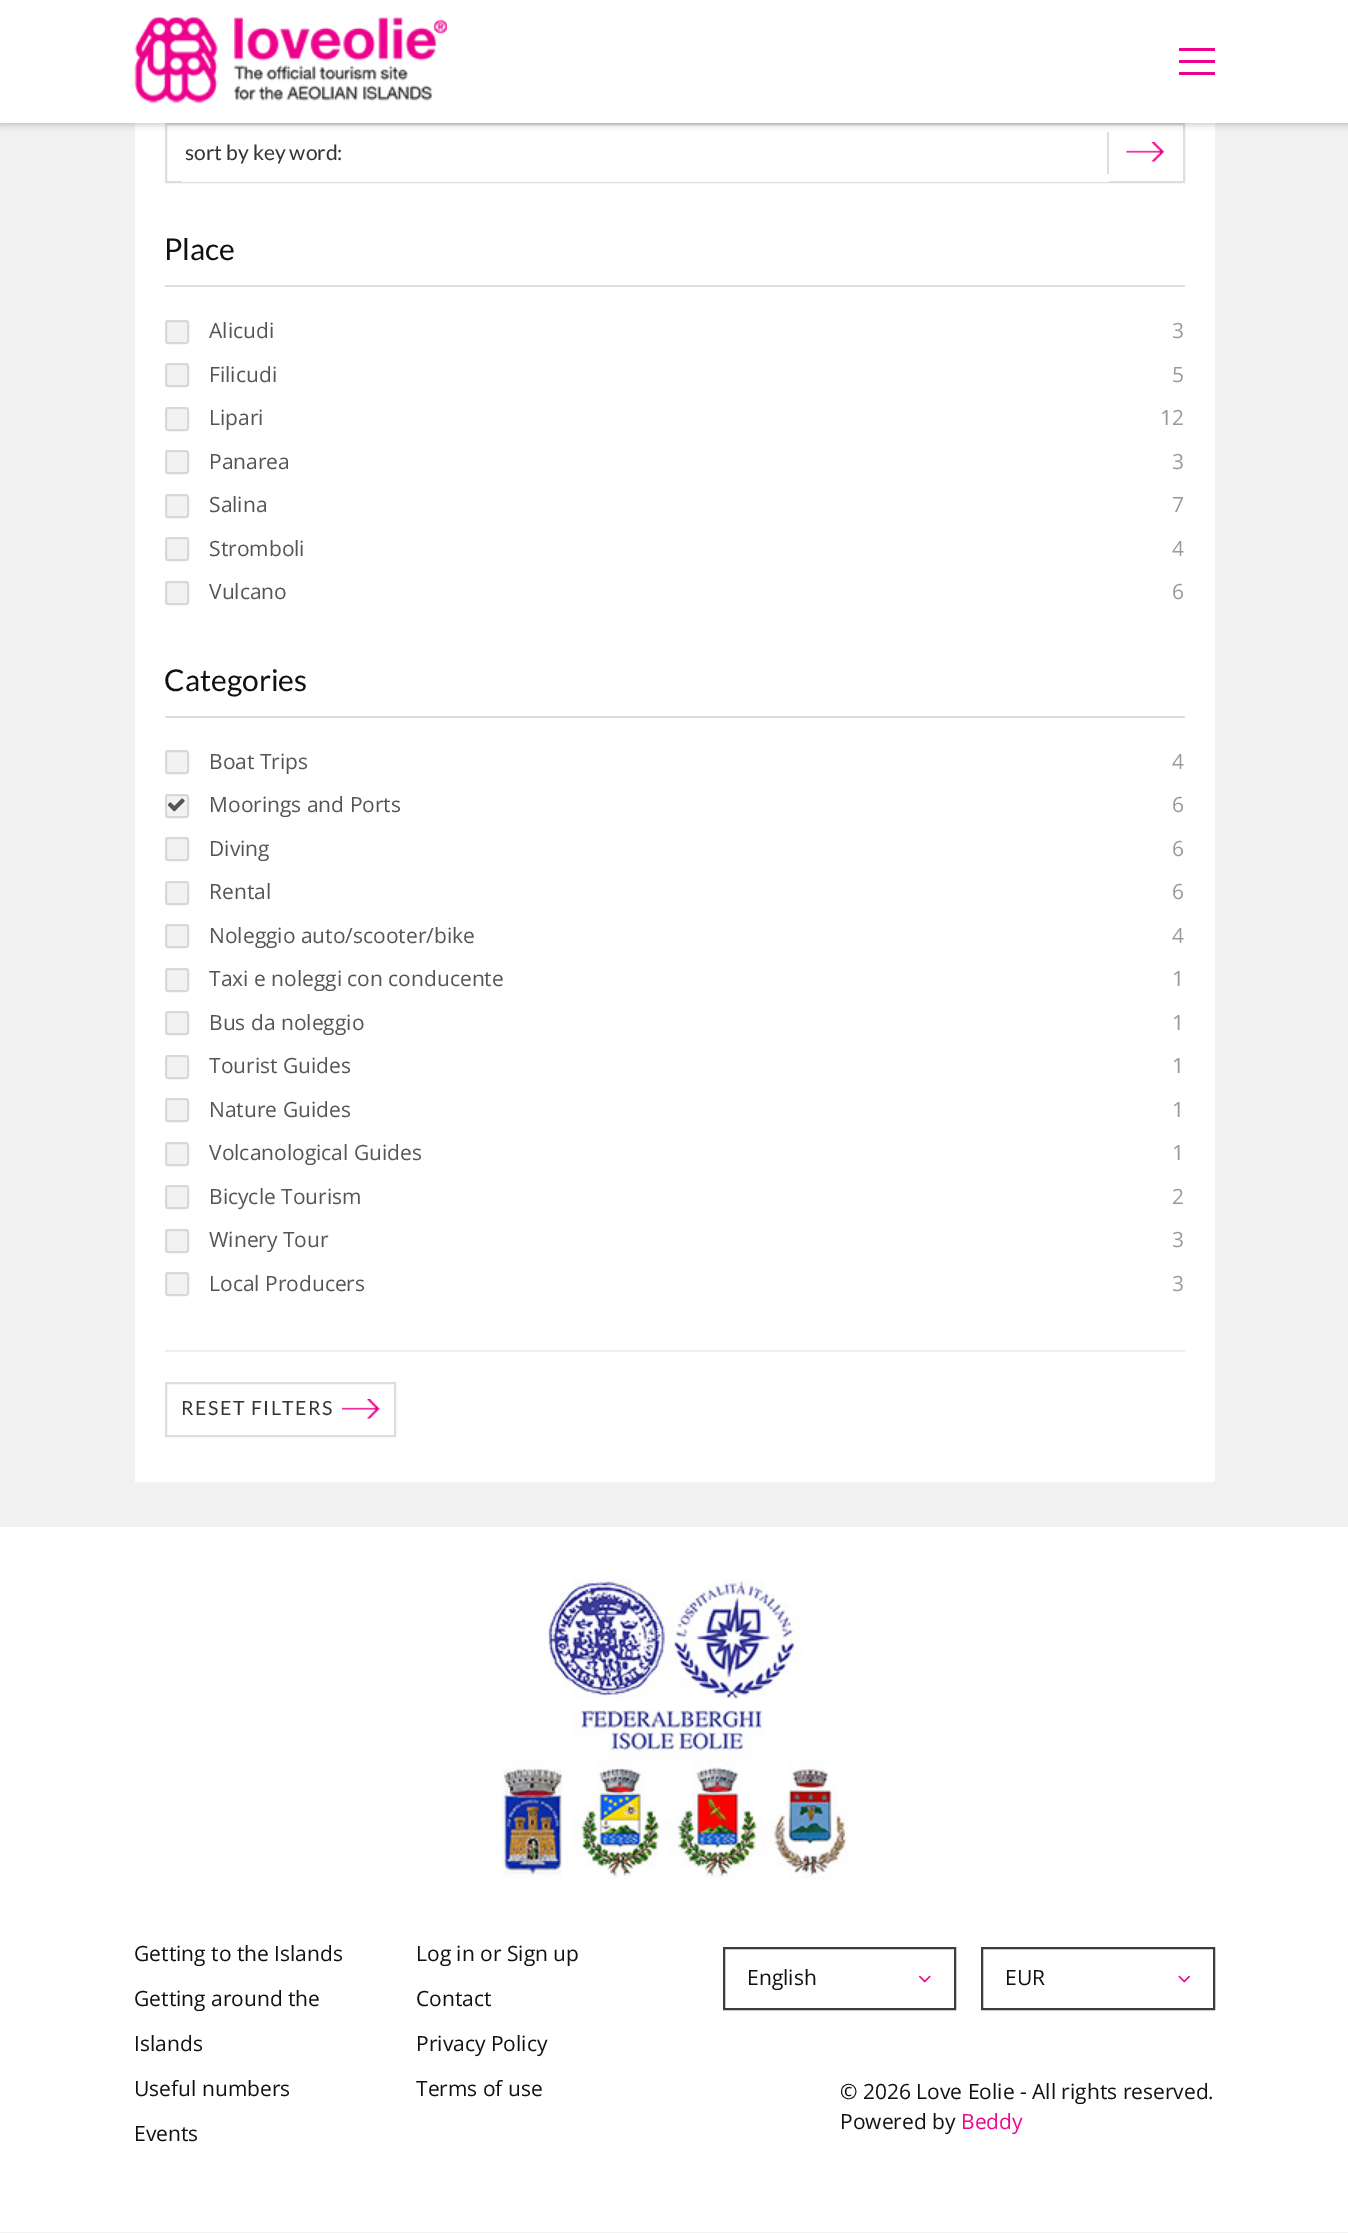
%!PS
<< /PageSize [1348 2233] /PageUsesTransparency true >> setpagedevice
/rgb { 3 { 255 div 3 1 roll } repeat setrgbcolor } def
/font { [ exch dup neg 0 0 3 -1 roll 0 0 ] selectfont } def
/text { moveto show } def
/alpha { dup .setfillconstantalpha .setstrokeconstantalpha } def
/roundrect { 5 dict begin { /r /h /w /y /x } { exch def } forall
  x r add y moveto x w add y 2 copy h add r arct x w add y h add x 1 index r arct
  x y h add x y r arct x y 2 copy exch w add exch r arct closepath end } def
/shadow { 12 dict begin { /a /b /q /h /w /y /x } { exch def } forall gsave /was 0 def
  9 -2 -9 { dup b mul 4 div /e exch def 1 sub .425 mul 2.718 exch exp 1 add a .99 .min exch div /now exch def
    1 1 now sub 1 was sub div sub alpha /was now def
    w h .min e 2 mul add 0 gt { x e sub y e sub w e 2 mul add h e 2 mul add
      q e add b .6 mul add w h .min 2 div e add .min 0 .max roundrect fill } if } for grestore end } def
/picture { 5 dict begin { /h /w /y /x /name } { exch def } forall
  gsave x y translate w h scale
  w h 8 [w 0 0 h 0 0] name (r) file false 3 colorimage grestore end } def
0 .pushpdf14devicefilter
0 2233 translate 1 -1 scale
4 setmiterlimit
241 241 241 rgb
0 0 1348 2233 rectfill
255 255 255 rgb
135 123 1080 1359 rectfill
222 222 222 rgb
2 setlinewidth
166 124 1018 58 rectstroke
1107 132 2 42 rectfill
0 0 0 rgb
0 2 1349 123 0 3 0.2 shadow
255 255 255 rgb
0 0 1348 123 rectfill
(img_01.rgb) 134 17 313 87 picture
236 0 141 rgb
1179 48 36 3 rectfill
1179 72 36 3 rectfill
1179 60 36 3 rectfill
255 255 255 rgb
182 181 927 1 rectfill
(img_02.rgb) 1126 142 38 20 picture
222 222 222 rgb
165 285 1020 2 rectfill
242 242 242 rgb
166 321 22 22 2 roundrect gsave fill grestore
216 216 216 rgb
stroke
242 242 242 rgb
166 364 22 22 2 roundrect gsave fill grestore
216 216 216 rgb
stroke
242 242 242 rgb
166 408 22 22 2 roundrect gsave fill grestore
216 216 216 rgb
stroke
242 242 242 rgb
166 451 22 22 2 roundrect gsave fill grestore
216 216 216 rgb
stroke
242 242 242 rgb
166 495 22 22 2 roundrect gsave fill grestore
216 216 216 rgb
stroke
242 242 242 rgb
166 538 22 22 2 roundrect gsave fill grestore
216 216 216 rgb
stroke
242 242 242 rgb
166 582 22 22 2 roundrect gsave fill grestore
216 216 216 rgb
stroke
222 222 222 rgb
165 716 1020 2 rectfill
242 242 242 rgb
166 751 22 22 2 roundrect gsave fill grestore
216 216 216 rgb
stroke
242 242 242 rgb
166 795 22 22 2 roundrect gsave fill grestore
216 216 216 rgb
stroke
(img_03.rgb) 167 798 18 14 picture
242 242 242 rgb
166 838 22 22 2 roundrect gsave fill grestore
216 216 216 rgb
stroke
242 242 242 rgb
166 882 22 22 2 roundrect gsave fill grestore
216 216 216 rgb
stroke
242 242 242 rgb
166 925 22 22 2 roundrect gsave fill grestore
216 216 216 rgb
stroke
242 242 242 rgb
166 969 22 22 2 roundrect gsave fill grestore
216 216 216 rgb
stroke
242 242 242 rgb
166 1012 22 22 2 roundrect gsave fill grestore
216 216 216 rgb
stroke
242 242 242 rgb
166 1056 22 22 2 roundrect gsave fill grestore
216 216 216 rgb
stroke
242 242 242 rgb
166 1099 22 22 2 roundrect gsave fill grestore
216 216 216 rgb
stroke
242 242 242 rgb
166 1143 22 22 2 roundrect gsave fill grestore
216 216 216 rgb
stroke
242 242 242 rgb
166 1186 22 22 2 roundrect gsave fill grestore
216 216 216 rgb
stroke
242 242 242 rgb
166 1230 22 22 2 roundrect gsave fill grestore
216 216 216 rgb
stroke
242 242 242 rgb
166 1273 22 22 2 roundrect gsave fill grestore
216 216 216 rgb
stroke
238 238 238 rgb
165 1350 1020 2 rectfill
(img_04.rgb) 342 1399 38 20 picture
222 222 222 rgb
166 1383 229 53 rectstroke
255 255 255 rgb
0 1527 1348 705 rectfill
(img_05.rgb) 501 1579 348 300 picture
61 61 61 rgb
724 1948 231 61 rectstroke
(img_06.rgb) 918 1975 13 8 picture
982 1948 232 61 rectstroke
(img_07.rgb) 1178 1975 13 8 picture
/Lato-Regular 21 font
51 51 51 rgb
(sort by key word:) 185 160 text
/Lato-Regular 30 font
17 17 17 rgb
(Place) 164 260 text
/OpenSans-Regular 21 font
85 85 85 rgb
(Alicudi) 209 338 text
153 153 153 rgb
(3) 1172 338 text
85 85 85 rgb
(Filicudi) 209 382 text
153 153 153 rgb
(5) 1172 382 text
85 85 85 rgb
(Lipari) 209 425 text
153 153 153 rgb
(12) 1160 425 text
85 85 85 rgb
(Panarea) 209 469 text
153 153 153 rgb
(3) 1172 469 text
85 85 85 rgb
(Salina) 209 512 text
153 153 153 rgb
(7) 1172 512 text
85 85 85 rgb
(Stromboli) 209 556 text
153 153 153 rgb
(4) 1172 556 text
85 85 85 rgb
(Vulcano) 209 599 text
153 153 153 rgb
(6) 1172 599 text
/Lato-Regular 30 font
17 17 17 rgb
(Categories) 164 691 text
/OpenSans-Regular 21 font
85 85 85 rgb
(Boat Trips) 209 769 text
153 153 153 rgb
(4) 1172 769 text
85 85 85 rgb
(Moorings and Ports) 209 812 text
153 153 153 rgb
(6) 1172 812 text
85 85 85 rgb
(Diving) 209 856 text
153 153 153 rgb
(6) 1172 856 text
85 85 85 rgb
(Rental) 209 899 text
153 153 153 rgb
(6) 1172 899 text
85 85 85 rgb
(Noleggio auto/scooter/bike) 209 943 text
153 153 153 rgb
(4) 1172 943 text
85 85 85 rgb
(Taxi e noleggi con conducente) 209 986 text
153 153 153 rgb
(1) 1172 986 text
85 85 85 rgb
(Bus da noleggio) 209 1030 text
153 153 153 rgb
(1) 1172 1030 text
85 85 85 rgb
(Tourist Guides) 209 1073 text
153 153 153 rgb
(1) 1172 1073 text
85 85 85 rgb
(Nature Guides) 209 1117 text
153 153 153 rgb
(1) 1172 1117 text
85 85 85 rgb
(Volcanological Guides) 209 1160 text
153 153 153 rgb
(1) 1172 1160 text
85 85 85 rgb
(Bicycle Tourism) 209 1204 text
153 153 153 rgb
(2) 1172 1204 text
85 85 85 rgb
(Winery Tour) 209 1247 text
153 153 153 rgb
(3) 1172 1247 text
85 85 85 rgb
(Local Producers) 209 1291 text
153 153 153 rgb
(3) 1172 1291 text
/Lato-Regular 19.5 font
51 51 51 rgb
181 1415 moveto 1.5 0 (RESET FILTERS) ashow
/OpenSans-Regular 21 font
17 17 17 rgb
(Getting to the Islands) 134 1961 text
(Getting around the) 134 2006 text
(Islands) 134 2051 text
(Useful numbers) 134 2096 text
(Events) 134 2141 text
(Log in or Sign up) 416 1961 text
(Contact) 416 2006 text
(Privacy Policy) 416 2051 text
(Terms of use) 416 2096 text
(English) 747 1985 text
(EUR) 1005 1985 text
(© 2026 Love Eolie - All rights reserved.) 840 2099 text
(Powered by) 840 2129 text
238 4 143 rgb
(Beddy) 961 2129 text
.poppdf14devicefilter showpage
